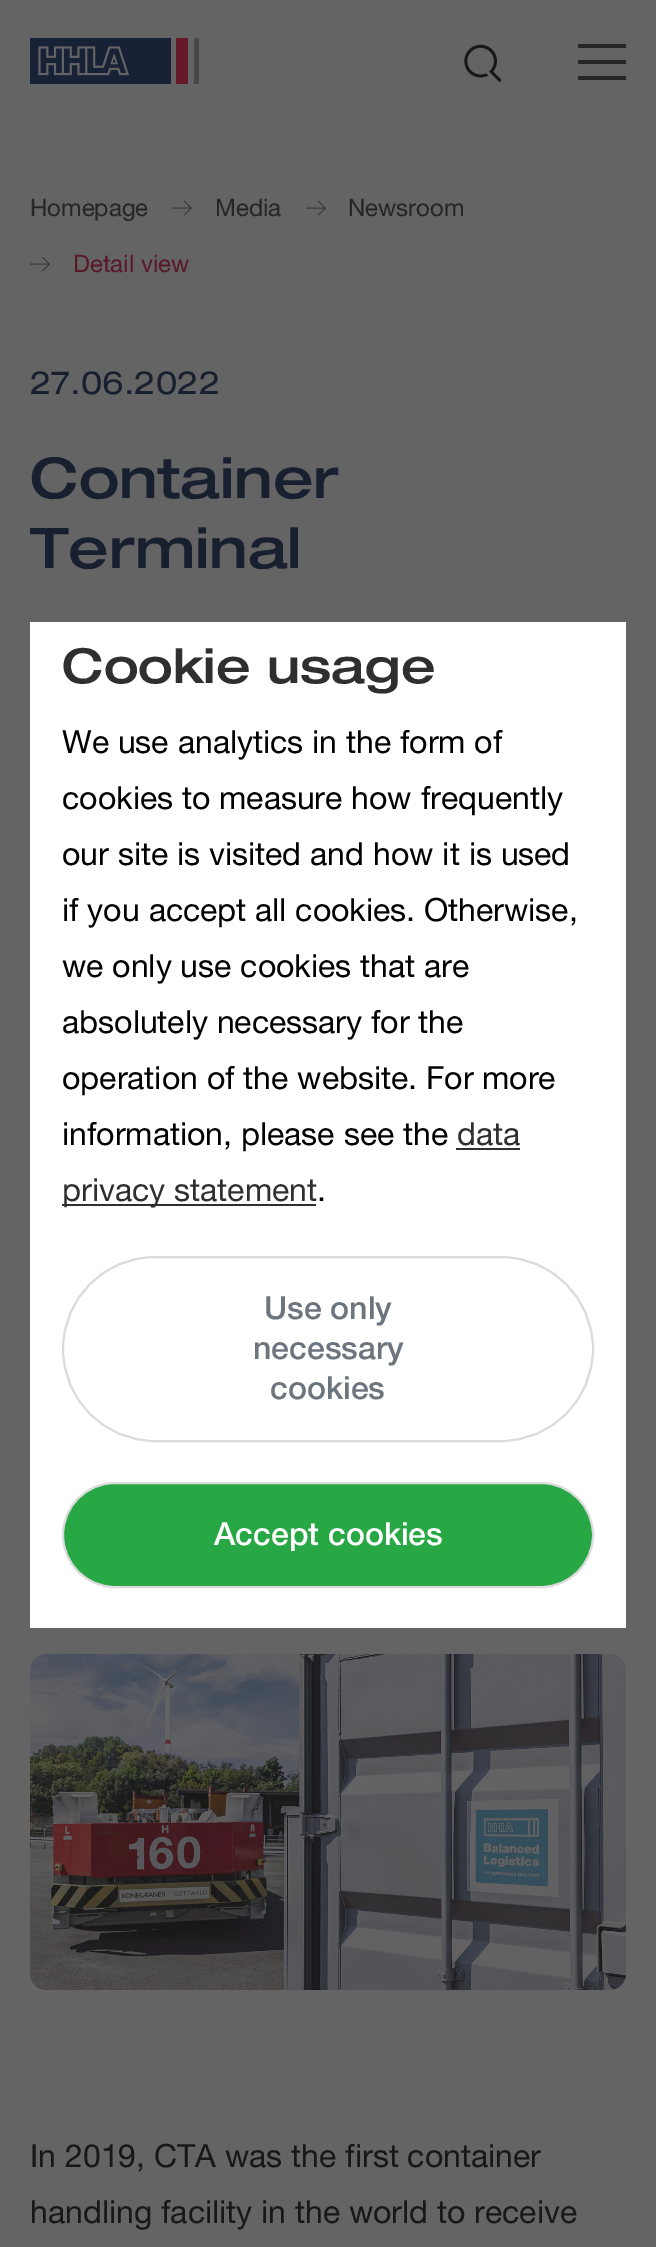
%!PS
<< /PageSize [656 2247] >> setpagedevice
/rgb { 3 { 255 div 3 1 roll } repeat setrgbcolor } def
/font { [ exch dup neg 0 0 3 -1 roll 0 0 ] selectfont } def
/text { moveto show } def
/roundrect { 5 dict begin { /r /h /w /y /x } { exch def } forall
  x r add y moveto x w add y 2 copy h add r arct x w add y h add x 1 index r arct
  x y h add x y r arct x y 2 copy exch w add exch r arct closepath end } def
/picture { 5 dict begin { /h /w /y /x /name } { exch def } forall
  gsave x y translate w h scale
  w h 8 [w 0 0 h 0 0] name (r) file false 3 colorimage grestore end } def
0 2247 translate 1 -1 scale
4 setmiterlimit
100 100 100 rgb
0 0 656 2247 rectfill
(img_01.rgb) 30 38 169 46 picture
(img_02.rgb) 464 44 38 39 picture
39 39 39 rgb
578 44 48 4 rectfill
578 76 48 4 rectfill
578 60 48 4 rectfill
(img_03.rgb) 172 200 20 16 picture
(img_03.rgb) 306 200 20 16 picture
(img_03.rgb) 30 256 20 16 picture
(img_04.rgb) 30 1654 596 336 picture
255 255 255 rgb
30 622 596 1006 rectfill
47 47 47 rgb
456 1148 64 2 rectfill
62 1204 254 2 rectfill
219 219 219 rgb
2 setlinewidth
63 1257 530 184 92 roundrect stroke
40 167 69 rgb
63 1483 530 104 52 roundrect gsave fill grestore
219 219 219 rgb
stroke
/HelveticaNeue-Regular 24 font
38 38 38 rgb
(Homepage) 30 216 text
(Media) 215 216 text
(Newsroom) 348 216 text
88 24 39 rgb
(Detail view) 73 272 text
/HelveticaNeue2-Regular 32 font
24 31 47 rgb
(27.06.2022) 30 394 text
/HelveticaNeue-Medium 56 font
(Container) 30 498 text
(Terminal) 30 568 text
/HelveticaNeue-Regular 32 font
24 24 24 rgb
(In 2019, CTA was the first container) 30 2167 text
(handling facility in the world to receive) 30 2223 text
/HelveticaNeue-Medium 48 font
47 47 47 rgb
(Cookie usage) 62 683 text
/HelveticaNeue-Regular 32 font
0 0 0 rgb
(We use analytics in the form of) 62 753 text
(cookies to measure how frequently) 62 809 text
(our site is visited and how it is used) 62 865 text
(if you accept all cookies. Otherwise,) 62 921 text
(we only use cookies that are) 62 977 text
(absolutely necessary for the) 62 1033 text
(operation of the website. For more) 62 1089 text
(information, please see the) 62 1145 text
47 47 47 rgb
(data) 457 1145 text
(privacy statement) 62 1201 text
0 0 0 rgb
(.) 317 1201 text
/HelveticaNeue2-Medium 32 font
108 117 125 rgb
(Use only) 264 1319 text
(necessary) 253 1359 text
(cookies) 270 1399 text
255 255 255 rgb
(Accept cookies) 214 1545 text
showpage
